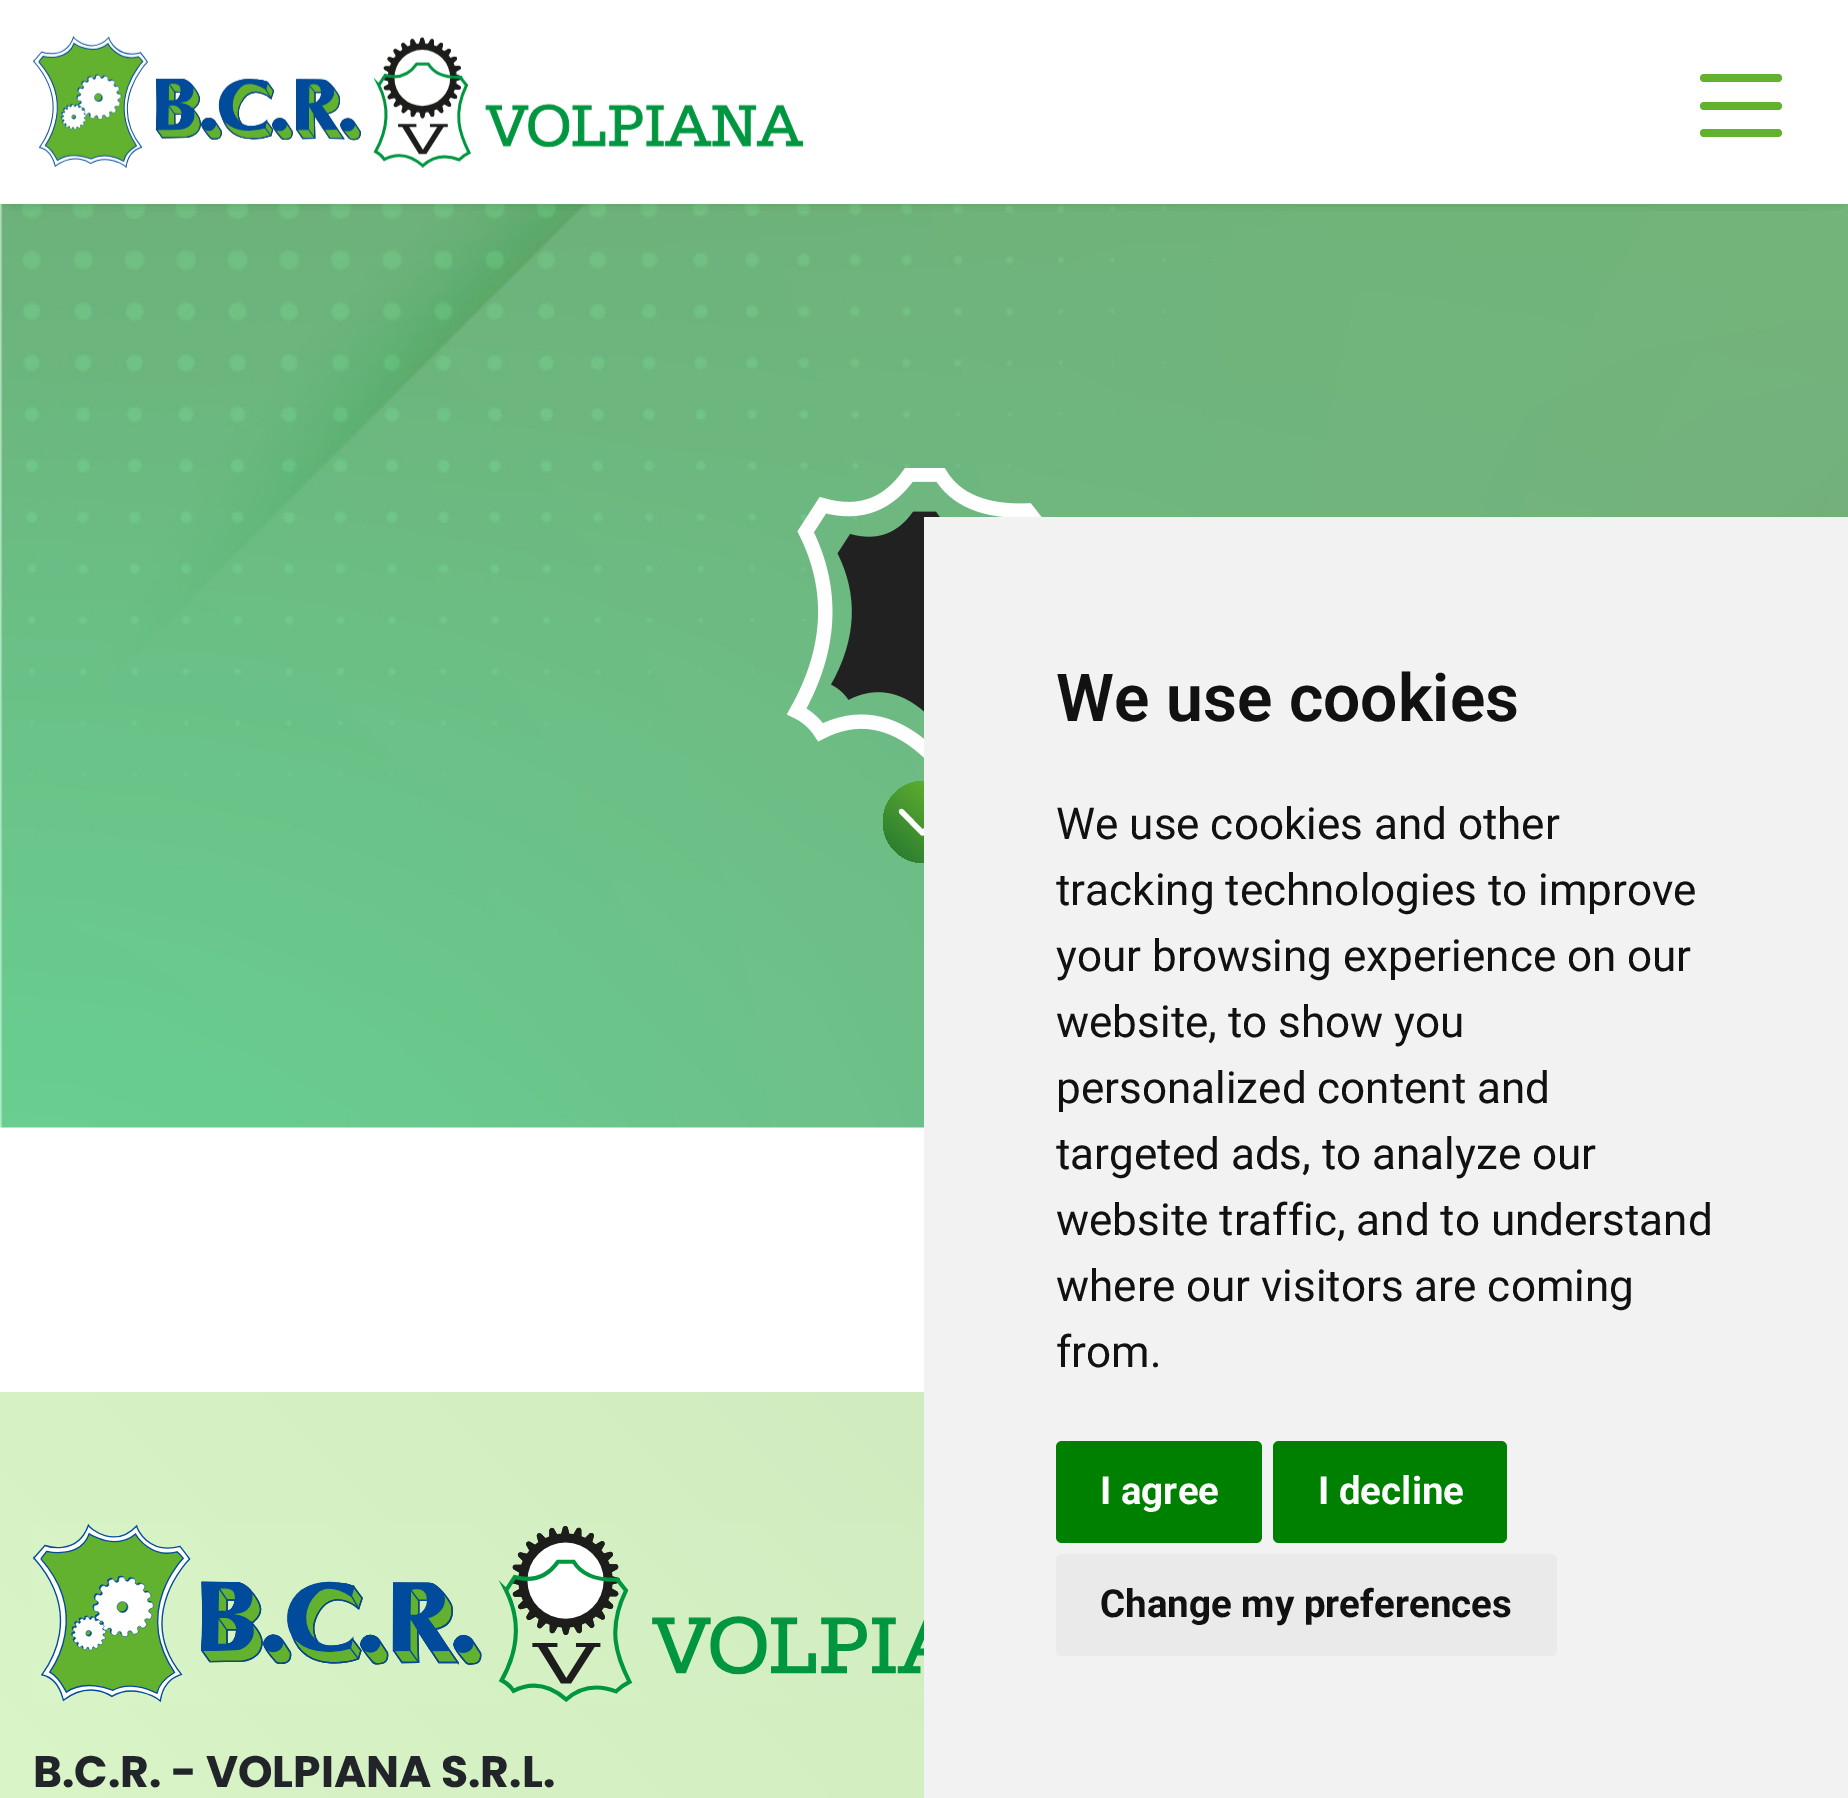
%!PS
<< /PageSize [1848 1798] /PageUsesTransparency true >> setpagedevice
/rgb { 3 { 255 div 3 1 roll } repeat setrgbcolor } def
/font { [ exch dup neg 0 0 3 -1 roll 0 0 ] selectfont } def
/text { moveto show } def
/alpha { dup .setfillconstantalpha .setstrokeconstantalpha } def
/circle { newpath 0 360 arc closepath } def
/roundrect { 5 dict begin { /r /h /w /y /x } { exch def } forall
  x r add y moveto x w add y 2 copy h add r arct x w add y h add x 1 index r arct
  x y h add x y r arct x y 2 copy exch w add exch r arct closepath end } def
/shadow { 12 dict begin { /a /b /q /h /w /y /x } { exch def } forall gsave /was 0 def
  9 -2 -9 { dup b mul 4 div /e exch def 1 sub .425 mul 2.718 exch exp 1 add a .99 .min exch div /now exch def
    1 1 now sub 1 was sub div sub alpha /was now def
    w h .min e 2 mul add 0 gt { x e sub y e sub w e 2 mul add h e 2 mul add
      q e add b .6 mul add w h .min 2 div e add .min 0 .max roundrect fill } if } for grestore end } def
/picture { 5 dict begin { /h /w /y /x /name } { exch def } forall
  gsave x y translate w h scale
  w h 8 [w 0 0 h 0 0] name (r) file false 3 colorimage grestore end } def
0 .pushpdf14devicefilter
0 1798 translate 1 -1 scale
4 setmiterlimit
255 255 255 rgb
0 0 1848 1798 rectfill
(img_02.rgb) 0 204 1848 924 picture
33 37 41 rgb
11 11 1826 182 0 8 1 shadow
255 255 255 rgb
0 0 1848 204 rectfill
(img_01.rgb) 33 36 770 132 picture
98 178 47 rgb
1700 74 82 8 4 roundrect fill
1700 102 82 8 4 roundrect fill
1700 129 82 8 4 roundrect fill
(img_03.rgb) 787 468 255 290 picture
gsave 924 822 41 circle clip newpath
<< /ShadingType 2 /ColorSpace /DeviceRGB /Coords [948 791 893 855] /Extend [true true] /Function << /FunctionType 2 /Domain [0 1] /C0 [0.384 0.698 0.184] /C1 [0.169 0.486 0.184] /N 1 >> >> shfill grestore
255 255 255 rgb
5.3 setlinewidth
1 setlinecap
901.5 811.5 moveto 21 21.5 rlineto 946.5 811.5 moveto -24 21.5 rlineto stroke
242 242 242 rgb
924 517 924 1281 rectfill
0 128 0 rgb
1056 1441 206 102 6 roundrect fill
1273 1441 234 102 6 roundrect fill
234 234 234 rgb
1056 1554 501 102 6 roundrect fill
gsave 0 1392 moveto 924 0 rlineto 0 406 rlineto -924 0 rlineto closepath clip newpath
<< /ShadingType 2 /ColorSpace /DeviceRGB /Coords [133 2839 1715 1258] /Extend [true true] /Function << /FunctionType 2 /Domain [0 1] /C0 [0.878 0.992 0.804] /C1 [0.792 0.894 0.729] /N 1 >> >> shfill grestore
(img_04.rgb) 33 1524 891 178 picture
/Roboto-SemiBold 66 font
17 17 17 rgb
(We use cookies) 1056 721 text
/Roboto-Regular 44 font
(We use cookies and other) 1056 839 text
(tracking technologies to improve) 1056 905 text
(your browsing experience on our) 1056 971 text
(website, to show you) 1056 1037 text
(personalized content and) 1056 1103 text
(targeted ads, to analyze our) 1056 1169 text
(website traffic, and to understand) 1056 1235 text
(where our visitors are coming) 1056 1301 text
(from.) 1056 1367 text
/Roboto-Bold 38.5 font
255 255 255 rgb
(I agree) 1100 1504 text
(I decline) 1318 1504 text
17 17 17 rgb
(Change my preferences) 1100 1617 text
/Poppins-Bold 44 font
33 37 41 rgb
(B.C.R. - VOLPIANA S.R.L.) 33 1787 text
.poppdf14devicefilter showpage
